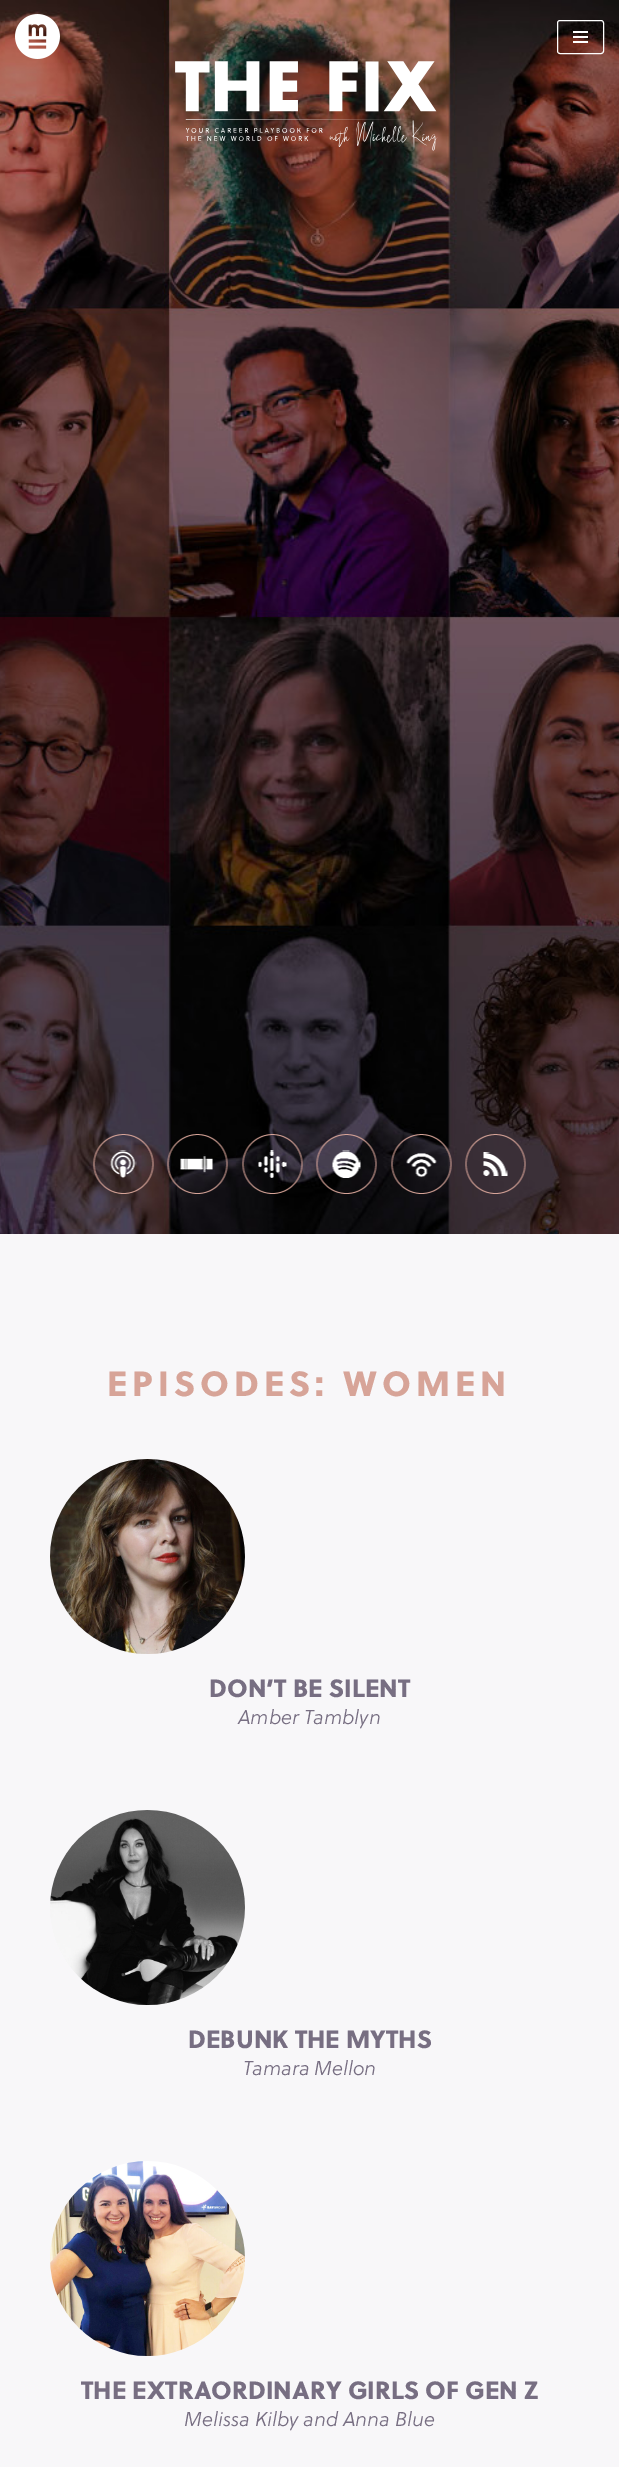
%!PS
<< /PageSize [619 2467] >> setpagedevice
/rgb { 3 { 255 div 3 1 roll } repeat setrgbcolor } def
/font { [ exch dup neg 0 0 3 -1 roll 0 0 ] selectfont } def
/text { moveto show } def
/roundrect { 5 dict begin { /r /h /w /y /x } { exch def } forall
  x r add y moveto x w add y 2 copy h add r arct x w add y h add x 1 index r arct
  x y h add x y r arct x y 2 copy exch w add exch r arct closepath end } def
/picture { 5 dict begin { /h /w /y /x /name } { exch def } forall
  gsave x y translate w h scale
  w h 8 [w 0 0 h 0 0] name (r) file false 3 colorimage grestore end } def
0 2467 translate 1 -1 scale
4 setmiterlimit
248 247 249 rgb
0 0 619 2467 rectfill
(img_01.rgb) 0 0 619 1234 picture
(img_02.rgb) 175 61 263 90 picture
(img_03.rgb) 93 1134 61 60 picture
(img_04.rgb) 167 1134 61 60 picture
(img_05.rgb) 242 1134 61 60 picture
(img_06.rgb) 316 1134 61 60 picture
(img_07.rgb) 391 1134 61 60 picture
(img_08.rgb) 465 1134 61 60 picture
(img_09.rgb) 15 14 45 45 picture
255 255 255 rgb
557.5 20.5 46 33 2.5 roundrect stroke
573 31 15 2 rectfill
573 36 15 2 rectfill
573 41 15 2 rectfill
(img_10.rgb) 50 1459 195 195 picture
(img_11.rgb) 50 1810 195 195 picture
(img_12.rgb) 50 2161 195 195 picture
/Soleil-ExtraBold 35 font
215 164 152 rgb
107 1396 moveto 5 0 (EPISODES: WOMEN) ashow
/Soleil-ExtraBold 25 font
119 110 130 rgb
(DON’T BE SILENT) 209 1697 text
/Soleil-LightItalic 20 font
(Amber Tamblyn) 238 1724 text
/Soleil-ExtraBold 25 font
(DEBUNK THE MYTHS) 188 2048 text
/Soleil-LightItalic 20 font
(Tamara Mellon) 243 2075 text
/Soleil-ExtraBold 25 font
(THE EXTRAORDINARY GIRLS OF GEN Z) 81 2399 text
/Soleil-LightItalic 20 font
(Melissa Kilby and Anna Blue) 184 2426 text
showpage
